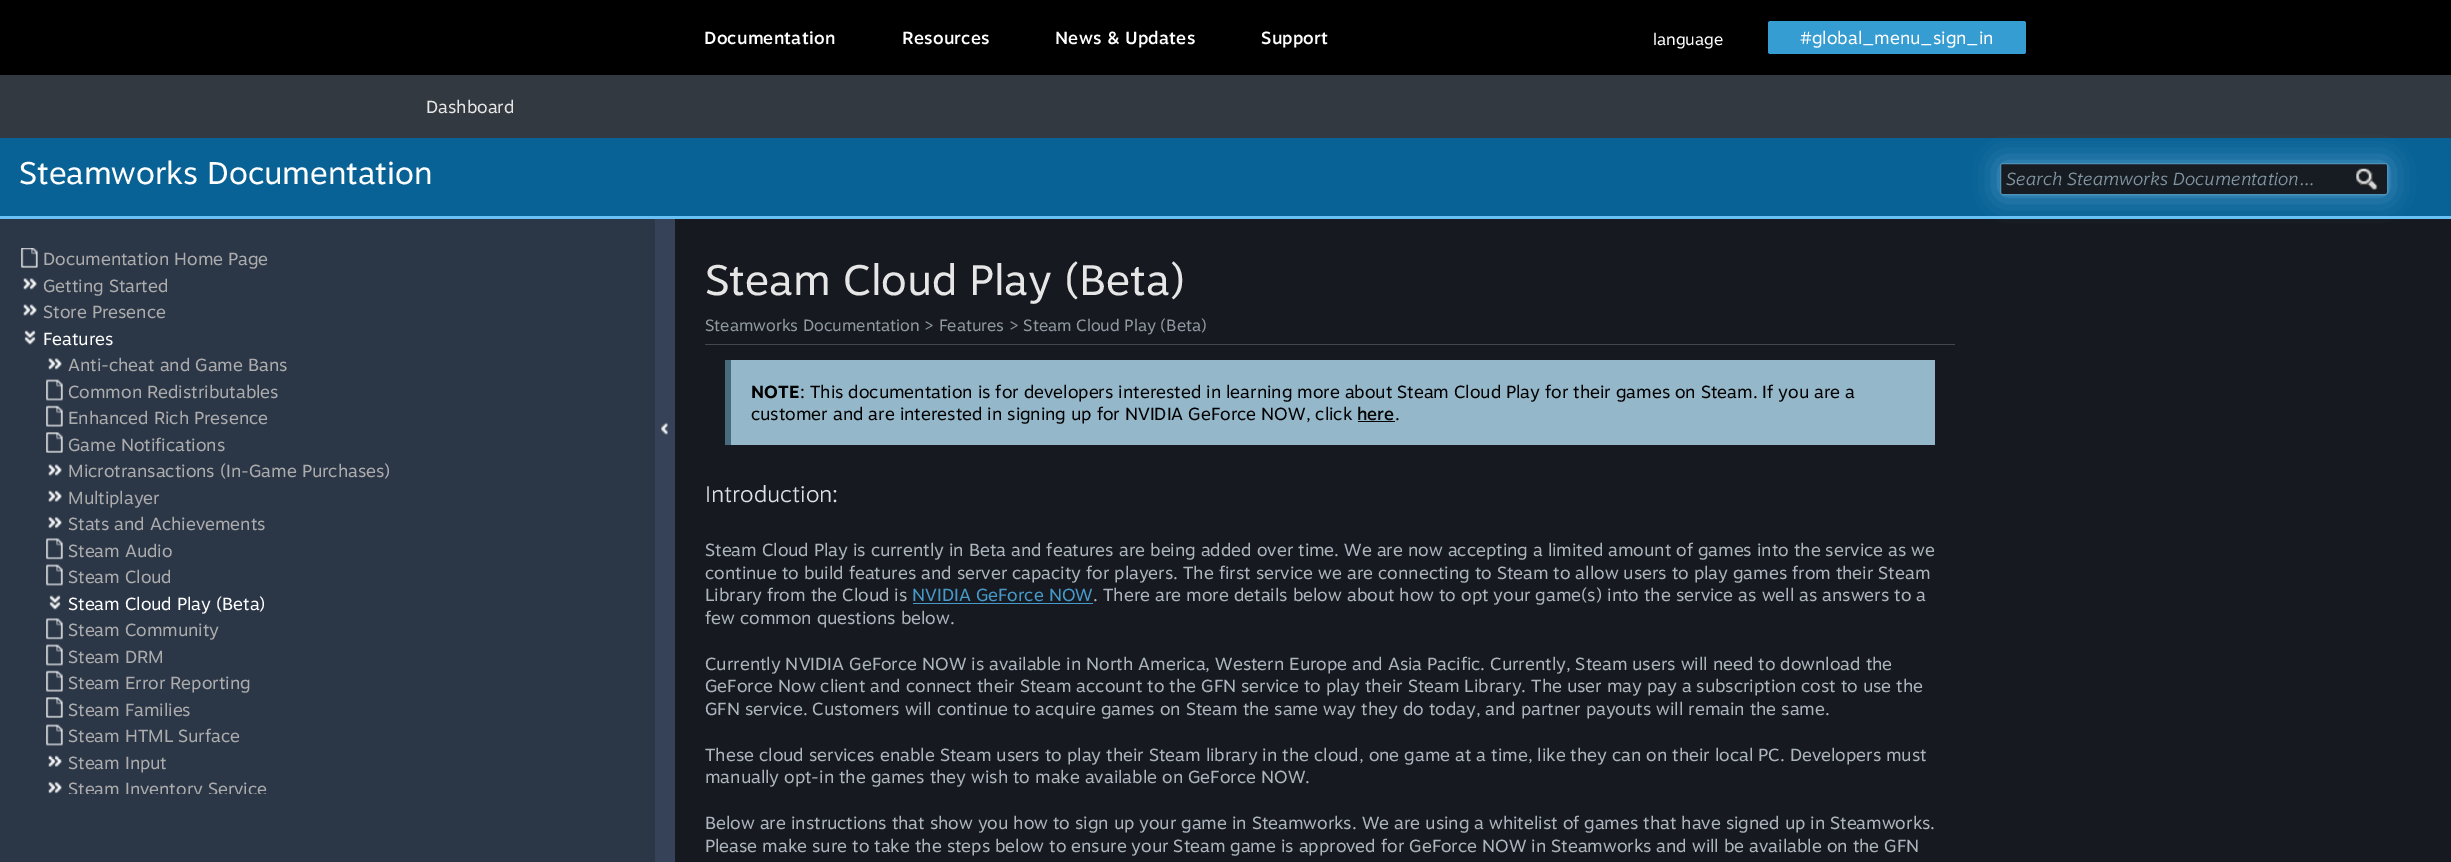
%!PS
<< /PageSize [2451 862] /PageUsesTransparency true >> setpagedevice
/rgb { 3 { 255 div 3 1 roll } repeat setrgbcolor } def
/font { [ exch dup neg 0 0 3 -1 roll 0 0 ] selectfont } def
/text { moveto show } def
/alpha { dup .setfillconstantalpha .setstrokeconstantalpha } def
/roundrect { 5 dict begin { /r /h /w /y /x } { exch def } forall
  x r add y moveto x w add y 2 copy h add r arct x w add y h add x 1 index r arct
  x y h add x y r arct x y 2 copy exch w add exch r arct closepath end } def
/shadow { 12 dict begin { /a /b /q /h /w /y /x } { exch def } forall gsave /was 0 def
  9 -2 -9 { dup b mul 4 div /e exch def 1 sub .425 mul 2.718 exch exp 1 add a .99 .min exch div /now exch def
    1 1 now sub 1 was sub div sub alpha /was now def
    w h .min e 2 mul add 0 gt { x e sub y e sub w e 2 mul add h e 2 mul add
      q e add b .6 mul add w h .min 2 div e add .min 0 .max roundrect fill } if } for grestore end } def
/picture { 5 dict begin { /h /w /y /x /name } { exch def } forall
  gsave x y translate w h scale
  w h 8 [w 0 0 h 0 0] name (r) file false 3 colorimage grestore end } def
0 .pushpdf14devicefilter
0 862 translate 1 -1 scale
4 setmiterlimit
22 25 32 rgb
0 0 2451 862 rectfill
0 0 0 rgb
0 0 2451 75 rectfill
54 157 210 rgb
1768 21 258 33 2.5 roundrect fill
50 57 64 rgb
0 75 2451 63 rectfill
9 98 149 rgb
0 138 2451 78 rectfill
103 193 245 rgb
0 216 2451 3 rectfill
147 211 245 rgb
2000 163 388 32 2.5 12.5 0.5 shadow
23 27 34 rgb
2000 163 388 32 2.5 roundrect fill
0.7 alpha
103 193 245 rgb
2000.5 163.5 387 31 2 roundrect stroke
1 alpha
(img_01.rgb) 2356 168 22 22 picture
43 54 71 rgb
0 219 655 643 rectfill
(img_02.rgb) 21 248 17 20 picture
(img_03.rgb) 23 278 14 12 picture
(img_04.rgb) 23 304 14 12 picture
(img_05.rgb) 24 330 12 15 picture
(img_06.rgb) 48 358 14 12 picture
(img_07.rgb) 46 379 17 22 picture
(img_08.rgb) 46 405 17 22 picture
(img_09.rgb) 46 432 17 21 picture
(img_10.rgb) 48 464 14 12 picture
(img_11.rgb) 48 490 14 12 picture
(img_12.rgb) 48 516 14 13 picture
(img_13.rgb) 46 538 17 22 picture
(img_07.rgb) 46 564 17 22 picture
(img_05.rgb) 49 595 12 15 picture
(img_13.rgb) 46 618 17 22 picture
(img_07.rgb) 46 644 17 22 picture
(img_08.rgb) 46 670 17 22 picture
(img_09.rgb) 46 697 17 21 picture
(img_07.rgb) 46 724 17 22 picture
(img_14.rgb) 48 755 14 12 picture
(img_12.rgb) 48 781 14 13 picture
53 66 87 rgb
655 219 20 643 rectfill
(img_15.rgb) 661 422 7 13 picture
69 71 77 rgb
705 344 1250 1 rectfill
148 183 202 rgb
731 360 1204 85 rectfill
72 107 126 rgb
725 360 6 85 rectfill
6 6 6 rgb
1358 421 37 1 rectfill
70 153 201 rgb
913 603 180 1 rectfill
/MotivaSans-Medium 17.5 font
255 255 255 rgb
704 44 moveto 0.25 0 (Documentation) ashow
902 44 moveto 0.25 0 (Resources) ashow
1055 44 moveto 0.25 0 (News & Updates) ashow
1261 44 moveto 0.25 0 (Support) ashow
/MotivaSans-Regular 16.25 font
(language) 1653 45 text
/MotivaSans-Regular 17.5 font
(#global_menu_sign_in) 1800 44 text
230 230 230 rgb
(Dashboard) 426 113 text
/MotivaSans-Regular 31.25 font
255 255 255 rgb
(Steamworks Documentation) 19 184 text
/MotivaSans-LightItalic 17.5 font
129 149 161 rgb
(Search Steamworks Documentation…) 2006 185 text
/MotivaSans-Regular 17.5 font
172 172 172 rgb
(Documentation Home Page) 43 265 text
(Getting Started) 43 292 text
(Store Presence) 43 318 text
255 255 255 rgb
(Features) 43 345 text
172 172 172 rgb
(Anti-cheat and Game Bans) 68 371 text
(Common Redistributables) 68 398 text
(Enhanced Rich Presence) 68 424 text
(Game Notifications) 68 451 text
(Microtransactions \(In-Game Purchases\)) 68 477 text
(Multiplayer) 68 504 text
(Stats and Achievements) 68 530 text
(Steam Audio) 68 557 text
(Steam Cloud) 68 583 text
255 255 255 rgb
(Steam Cloud Play \(Beta\)) 68 610 text
172 172 172 rgb
(Steam Community) 68 636 text
(Steam DRM) 68 663 text
(Steam Error Reporting) 68 689 text
(Steam Families) 68 716 text
(Steam HTML Surface) 68 742 text
(Steam Input) 68 769 text
gsave
20 244 625 550 rectclip
(Steam Inventory Service) 68 795 text
grestore
/MotivaSans-Regular 42.5 font
230 230 230 rgb
(Steam Cloud Play \(Beta\)) 705 295 text
/MotivaSans-Regular 16.25 font
143 152 160 rgb
(Steamworks Documentation > Features > Steam Cloud Play \(Beta\)) 705 331 text
/MotivaSans-Bold 17.5 font
0 0 0 rgb
(NOTE) 751 398 text
/MotivaSans-Regular 17.5 font
(: This documentation is for developers interested in learning more about Steam Cloud Play for their games on Steam. If you are a) 800 398 text
(customer and are interested in signing up for NVIDIA GeForce NOW, click) 751 420 text
/MotivaSans-Medium 17.5 font
6 6 6 rgb
(here) 1357 420 text
/MotivaSans-Regular 17.5 font
0 0 0 rgb
(.) 1395 420 text
/MotivaSans-Light 22.5 font
221 224 228 rgb
(Introduction:) 705 502 text
/MotivaSans-Regular 17.5 font
172 181 190 rgb
(Steam Cloud Play is currently in Beta and features are being added over time. We are now accepting a limited amount of games into the service as we) 705 556 text
(continue to build features and server capacity for players. The first service we are connecting to Steam to allow users to play games from their Steam) 705 579 text
(Library from the Cloud is) 705 601 text
70 153 201 rgb
(NVIDIA GeForce NOW) 912 601 text
172 181 190 rgb
(. There are more details below about how to opt your game\(s\) into the service as well as answers to a) 1093 601 text
(few common questions below.) 705 624 text
(Currently NVIDIA GeForce NOW is available in North America, Western Europe and Asia Pacific. Currently, Steam users will need to download the) 705 670 text
(GeForce Now client and connect their Steam account to the GFN service to play their Steam Library. The user may pay a subscription cost to use the) 705 692 text
(GFN service. Customers will continue to acquire games on Steam the same way they do today, and partner payouts will remain the same.) 705 715 text
(These cloud services enable Steam users to play their Steam library in the cloud, one game at a time, like they can on their local PC. Developers must) 705 761 text
(manually opt-in the games they wish to make available on GeForce NOW.) 705 783 text
(Below are instructions that show you how to sign up your game in Steamworks. We are using a whitelist of games that have signed up in Steamworks.) 705 829 text
(Please make sure to take the steps below to ensure your Steam game is approved for GeForce NOW in Steamworks and will be available on the GFN) 705 852 text
.poppdf14devicefilter showpage
